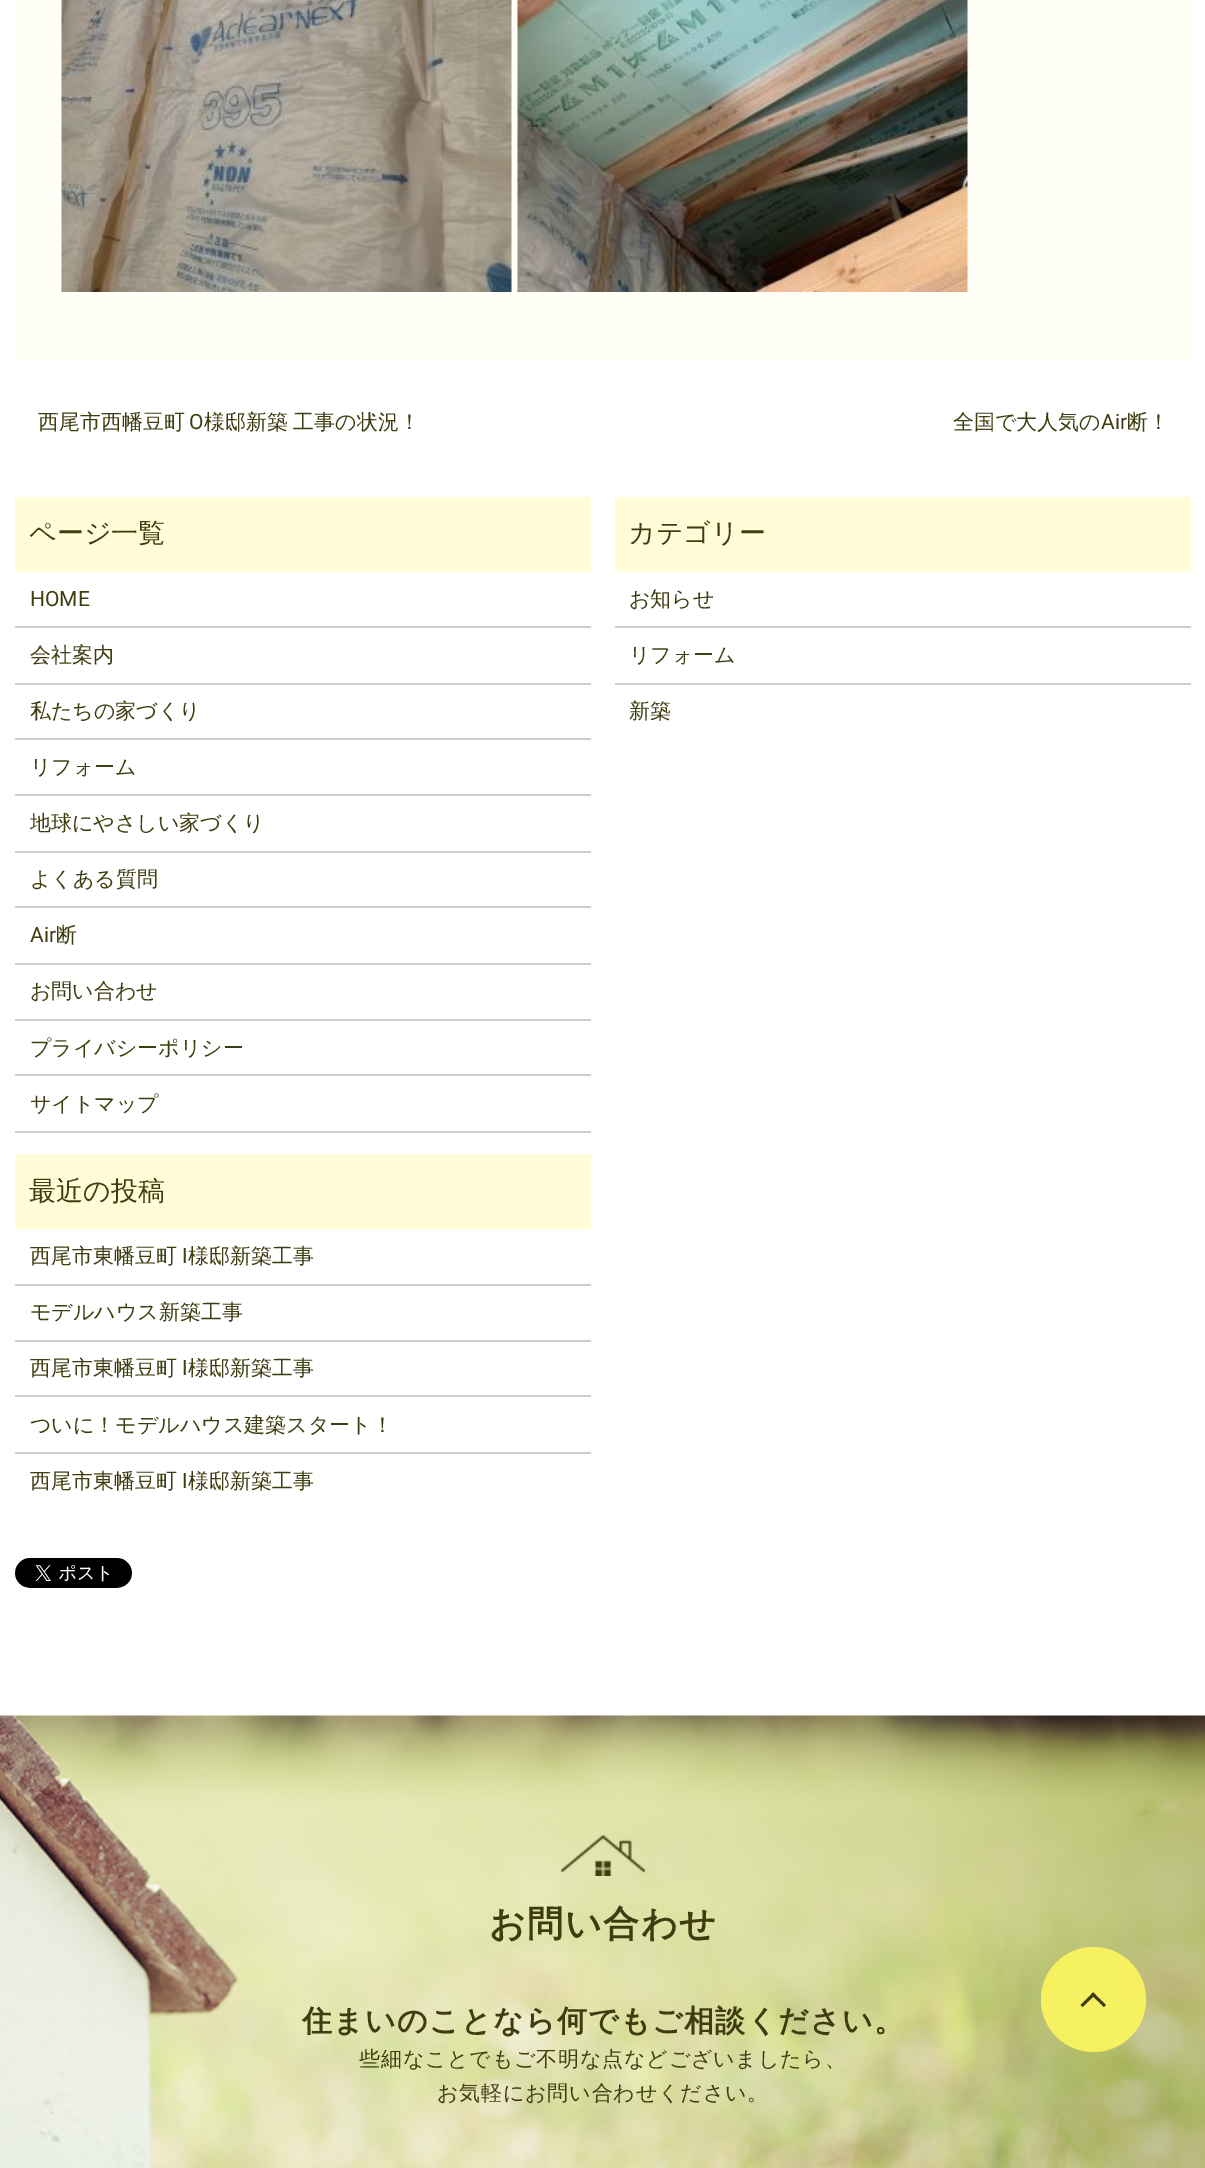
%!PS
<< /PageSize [1205 2168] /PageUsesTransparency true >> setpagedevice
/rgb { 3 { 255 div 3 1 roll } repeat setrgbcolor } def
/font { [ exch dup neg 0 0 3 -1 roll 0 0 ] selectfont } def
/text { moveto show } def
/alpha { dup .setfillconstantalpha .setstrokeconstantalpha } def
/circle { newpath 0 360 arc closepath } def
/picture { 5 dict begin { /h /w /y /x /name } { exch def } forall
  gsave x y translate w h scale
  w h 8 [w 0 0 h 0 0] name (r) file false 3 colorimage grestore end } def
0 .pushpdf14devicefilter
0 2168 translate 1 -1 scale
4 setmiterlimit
255 255 255 rgb
0 0 1205 2168 rectfill
255 255 248 rgb
15 0 1176 360 rectfill
(img_01.rgb) 61 0 451 292 picture
(img_02.rgb) 517 0 451 292 picture
255 253 215 rgb
15 497 576 75 rectfill
204 204 204 rgb
15 626 576 2 rectfill
15 683 576 2 rectfill
15 738 576 2 rectfill
15 794 576 2 rectfill
15 851 576 2 rectfill
15 906 576 2 rectfill
15 963 576 2 rectfill
15 1019 576 2 rectfill
15 1074 576 2 rectfill
15 1131 576 2 rectfill
255 253 215 rgb
615 497 576 75 rectfill
204 204 204 rgb
615 626 576 2 rectfill
615 683 576 2 rectfill
255 253 215 rgb
15 1154 576 75 rectfill
204 204 204 rgb
15 1284 576 2 rectfill
15 1340 576 2 rectfill
15 1395 576 2 rectfill
15 1452 576 2 rectfill
(img_03.rgb) 15 1558 117 30 picture
(img_04.rgb) 0 1715 1205 453 picture
(img_05.rgb) 561 1835 84 41 picture
0.9 alpha
252 246 93 rgb
1093.5 1999.5 52.5 circle fill
1 alpha
63 61 16 rgb
1093 1992.5 moveto 13 12.5 rlineto -2 2 rlineto -13 -12.5 rlineto closepath fill
1093 1992.5 moveto 2.5 2 rlineto -13 12.5 rlineto -2 -2 rlineto closepath fill
/WenQuanYiZenHei-Medium 21 font
(西尾市西幡豆町) 38 429 text
/Roboto-Regular 21 font
(O) 189 429 text
/WenQuanYiZenHei-Medium 21 font
204 429 moveto -1 0 32 (様邸新築 工事の状況！) widthshow
(全国で大人気の) 953 429 text
/Roboto-Regular 21 font
(Air) 1101 429 text
/WenQuanYiZenHei-Medium 21 font
(断！) 1127 429 text
/WenQuanYiZenHei-Medium 27 font
(ページ一覧) 29 542 text
/Roboto-Regular 21 font
(HOME) 30 606 text
/WenQuanYiZenHei-Medium 21 font
(会社案内) 30 662 text
(私たちの家づくり) 30 718 text
(リフォーム) 30 774 text
(地球にやさしい家づくり) 30 830 text
(よくある質問) 30 886 text
/Roboto-Regular 21 font
(Air) 30 942 text
/WenQuanYiZenHei-Medium 21 font
(断) 56 942 text
(お問い合わせ) 30 998 text
(プライバシーポリシー) 30 1055 text
(サイトマップ) 30 1111 text
/WenQuanYiZenHei-Medium 27 font
(カテゴリー) 628 542 text
/WenQuanYiZenHei-Medium 21 font
(お知らせ) 629 606 text
(リフォーム) 629 662 text
(新築) 629 718 text
/WenQuanYiZenHei-Medium 27 font
(最近の投稿) 29 1200 text
/WenQuanYiZenHei-Medium 21 font
(西尾市東幡豆町) 30 1263 text
/Roboto-Regular 21 font
(I) 182 1263 text
/WenQuanYiZenHei-Medium 21 font
(様邸新築工事) 188 1263 text
(モデルハウス新築工事) 30 1319 text
(西尾市東幡豆町) 30 1375 text
/Roboto-Regular 21 font
(I) 182 1375 text
/WenQuanYiZenHei-Medium 21 font
(様邸新築工事) 188 1375 text
(ついに！モデルハウス建築スタート！) 30 1432 text
(西尾市東幡豆町) 30 1488 text
/Roboto-Regular 21 font
(I) 182 1488 text
/WenQuanYiZenHei-Medium 21 font
(様邸新築工事) 188 1488 text
/WenQuanYiZenHei-Bold 36 font
489 1936 moveto 1.5 0 (お問い合わせ) ashow
/WenQuanYiZenHei-Bold 30 font
302 2031 moveto 1.25 0 (住まいのことなら何でもご相談ください。) ashow
/WenQuanYiZenHei-Medium 21 font
359 2066 moveto 0.8 0 (些細なことでもご不明な点などございましたら、) ashow
437 2100 moveto 0.8 0 (お気軽にお問い合わせください。) ashow
.poppdf14devicefilter showpage
